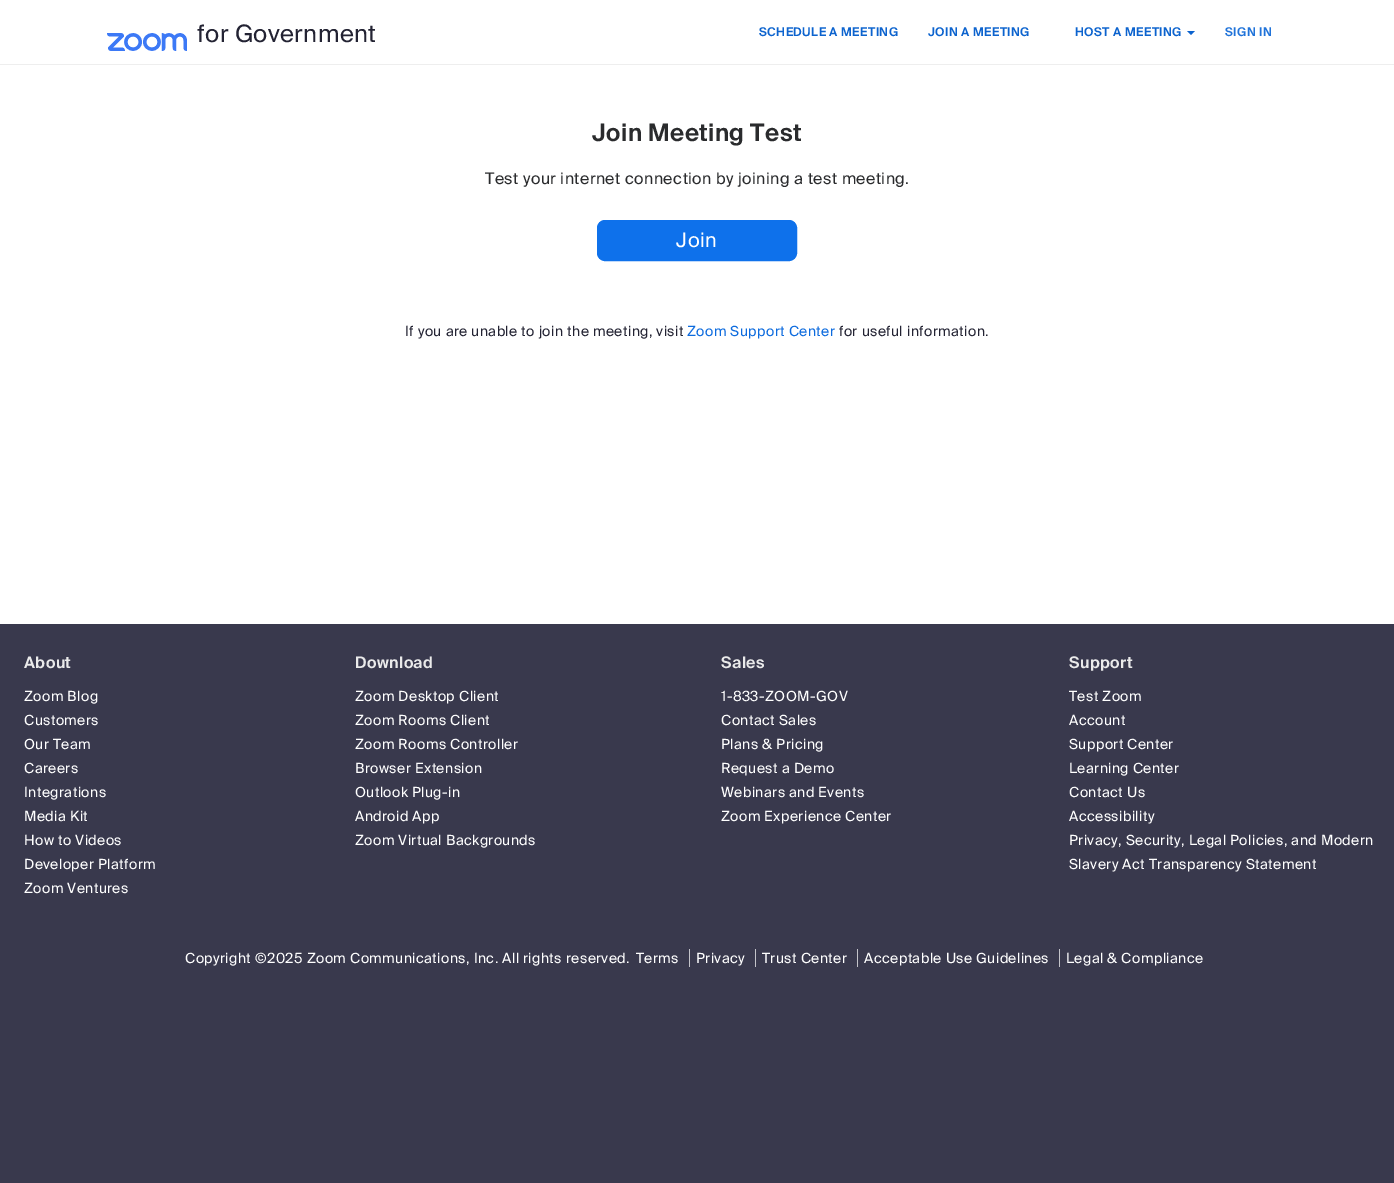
%!PS
<< /PageSize [1394 1183] /PageUsesTransparency true >> setpagedevice
/rgb { 3 { 255 div 3 1 roll } repeat setrgbcolor } def
/font { [ exch dup neg 0 0 3 -1 roll 0 0 ] selectfont } def
/alpha { dup .setfillconstantalpha .setstrokeconstantalpha } def
/roundrect { 5 dict begin { /r /h /w /y /x } { exch def } forall
  x r add y moveto x w add y 2 copy h add r arct x w add y h add x 1 index r arct
  x y h add x y r arct x y 2 copy exch w add exch r arct closepath end } def
/shadow { 12 dict begin { /a /b /q /h /w /y /x } { exch def } forall gsave /was 0 def
  9 -2 -9 { dup b mul 4 div /e exch def 1 sub .425 mul 2.718 exch exp 1 add a .99 .min exch div /now exch def
    1 1 now sub 1 was sub div sub alpha /was now def
    w h .min e 2 mul add 0 gt { x e sub y e sub w e 2 mul add h e 2 mul add
      q e add b .6 mul add w h .min 2 div e add .min 0 .max roundrect fill } if } for grestore end } def
/picture { 5 dict begin { /h /w /y /x /name } { exch def } forall
  gsave x y translate w h scale
  w h 8 [w 0 0 h 0 0] name (r) file false 3 colorimage grestore end } def
0 .pushpdf14devicefilter
0 1183 translate 1 -1 scale
4 setmiterlimit
57 57 77 rgb
0 0 1394 1183 rectfill
255 255 255 rgb
0 0 1394 624 rectfill
gsave
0 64 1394 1 rectclip
0 0 0 rgb
0 0 1394 64 0 1 0.2 shadow
grestore
(img_01.rgb) 107 33 80 18 picture
12 99 206 rgb
1187 31 moveto 8 0 rlineto -4 4 rlineto closepath fill
14 113 235 rgb
597.5 220.5 199 40 7.5 roundrect gsave fill grestore
stroke
196 196 202 rgb
689 949 1 18 rectfill
755 949 1 18 rectfill
857 949 1 18 rectfill
1059 949 1 18 rectfill
/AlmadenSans-Regular 24 font
35 35 51 rgb
197 42 moveto 0.42 0 (for Government) ashow
/AlmadenSans-SemiBold 12 font
12 99 206 rgb
759 36 moveto 0.42 0 (SCHEDULE A MEETING) ashow
928 36 moveto 0.42 0 (JOIN A MEETING) ashow
1075 36 moveto 0.42 0 (HOST A MEETING) ashow
32 115 217 rgb
1225 36 moveto 0.42 0 (SIGN IN) ashow
/AlmadenSans-SemiBold 24 font
42 43 45 rgb
592 141 moveto 0.42 0 (Join Meeting Test) ashow
/AlmadenSans-Regular 16 font
485 184 moveto 0.42 0 (Test your internet connection by joining a test meeting.) ashow
/AlmadenSans-Regular 20 font
255 255 255 rgb
676 247 moveto 0.5 0 (Join) ashow
/AlmadenSans-Regular 14 font
35 35 51 rgb
405 336 moveto 0.42 0 (If you are unable to join the meeting, visit) ashow
13 107 222 rgb
687 336 moveto 0.42 0 (Zoom Support Center) ashow
35 35 51 rgb
839 336 moveto 0.42 0 (for useful information.) ashow
/AlmadenSans-SemiBold 16 font
234 234 234 rgb
24 668 moveto 0.42 0 (About) ashow
/AlmadenSans-Regular 14 font
255 255 255 rgb
24 701 moveto 0.42 0 (Zoom Blog) ashow
24 725 moveto 0.42 0 (Customers) ashow
24 749 moveto 0.42 0 (Our Team) ashow
24 773 moveto 0.42 0 (Careers) ashow
24 797 moveto 0.42 0 (Integrations) ashow
24 821 moveto 0.42 0 (Media Kit) ashow
24 845 moveto 0.42 0 (How to Videos) ashow
24 869 moveto 0.42 0 (Developer Platform) ashow
24 893 moveto 0.42 0 (Zoom Ventures) ashow
/AlmadenSans-SemiBold 16 font
234 234 234 rgb
355 668 moveto 0.42 0 (Download) ashow
/AlmadenSans-Regular 14 font
255 255 255 rgb
355 701 moveto 0.42 0 (Zoom Desktop Client) ashow
355 725 moveto 0.42 0 (Zoom Rooms Client) ashow
355 749 moveto 0.42 0 (Zoom Rooms Controller) ashow
355 773 moveto 0.42 0 (Browser Extension) ashow
355 797 moveto 0.42 0 (Outlook Plug-in) ashow
355 821 moveto 0.42 0 (Android App) ashow
355 845 moveto 0.42 0 (Zoom Virtual Backgrounds) ashow
/AlmadenSans-SemiBold 16 font
234 234 234 rgb
721 668 moveto 0.42 0 (Sales) ashow
/AlmadenSans-Regular 14 font
255 255 255 rgb
721 701 moveto 0.42 0 (1-833-ZOOM-GOV) ashow
721 725 moveto 0.42 0 (Contact Sales) ashow
721 749 moveto 0.42 0 (Plans & Pricing) ashow
721 773 moveto 0.42 0 (Request a Demo) ashow
721 797 moveto 0.42 0 (Webinars and Events) ashow
721 821 moveto 0.42 0 (Zoom Experience Center) ashow
/AlmadenSans-SemiBold 16 font
234 234 234 rgb
1069 668 moveto 0.42 0 (Support) ashow
/AlmadenSans-Regular 14 font
255 255 255 rgb
1069 701 moveto 0.42 0 (Test Zoom) ashow
1069 725 moveto 0.42 0 (Account) ashow
1069 749 moveto 0.42 0 (Support Center) ashow
1069 773 moveto 0.42 0 (Learning Center) ashow
1069 797 moveto 0.42 0 (Contact Us) ashow
1069 821 moveto 0.42 0 (Accessibility) ashow
1069 845 moveto 0.42 0 (Privacy, Security, Legal Policies, and Modern) ashow
1069 869 moveto 0.42 0 (Slavery Act Transparency Statement) ashow
185 963 moveto 0.42 0 (Copyright ©2025 Zoom Communications, Inc. All rights reserved.) ashow
636 963 moveto 0.42 0 (Terms) ashow
696 963 moveto 0.42 0 (Privacy) ashow
762 963 moveto 0.42 0 (Trust Center) ashow
864 963 moveto 0.42 0 (Acceptable Use Guidelines) ashow
1066 963 moveto 0.42 0 (Legal & Compliance) ashow
.poppdf14devicefilter showpage
